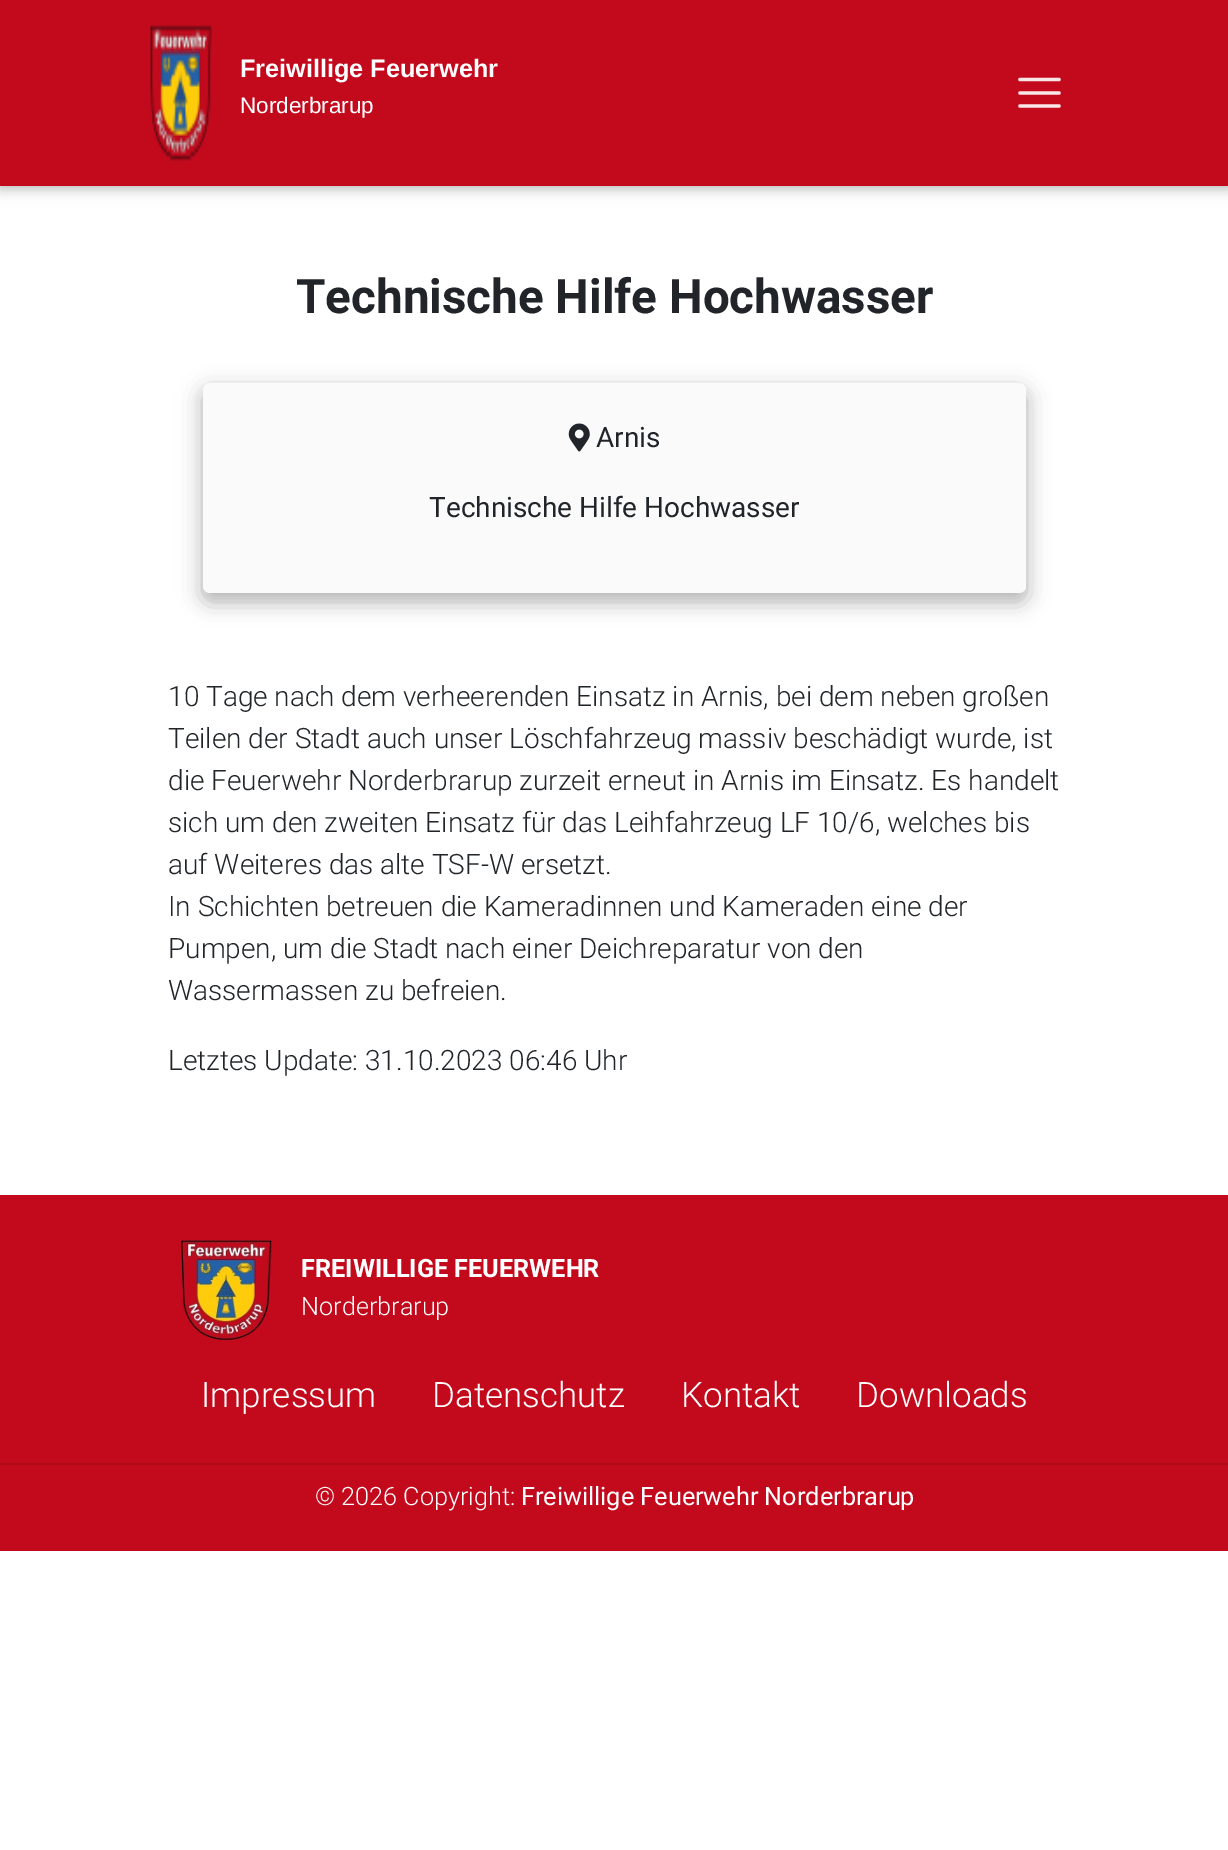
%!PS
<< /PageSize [1228 1850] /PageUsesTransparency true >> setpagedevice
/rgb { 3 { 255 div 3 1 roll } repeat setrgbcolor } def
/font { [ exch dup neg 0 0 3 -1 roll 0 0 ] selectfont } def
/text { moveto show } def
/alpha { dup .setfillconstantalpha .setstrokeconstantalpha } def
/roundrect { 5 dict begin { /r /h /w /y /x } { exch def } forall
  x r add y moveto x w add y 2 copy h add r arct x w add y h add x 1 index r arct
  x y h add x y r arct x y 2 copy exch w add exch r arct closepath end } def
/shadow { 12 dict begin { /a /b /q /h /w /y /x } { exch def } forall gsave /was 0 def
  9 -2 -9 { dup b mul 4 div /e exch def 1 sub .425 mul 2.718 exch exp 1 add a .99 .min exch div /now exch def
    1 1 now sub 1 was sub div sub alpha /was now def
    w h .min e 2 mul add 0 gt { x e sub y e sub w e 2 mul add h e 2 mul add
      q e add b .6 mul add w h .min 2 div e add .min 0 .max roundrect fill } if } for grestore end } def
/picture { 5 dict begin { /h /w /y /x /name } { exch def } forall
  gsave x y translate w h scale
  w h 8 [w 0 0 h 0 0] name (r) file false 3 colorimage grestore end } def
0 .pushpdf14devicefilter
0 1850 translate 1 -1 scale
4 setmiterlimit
255 255 255 rgb
0 0 1228 1850 rectfill
0 0 0 rgb
0 4 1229 185 0 9 0.12 shadow
0 4 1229 185 0 4.5 0.16 shadow
195 10 29 rgb
0 0 1228 186 rectfill
(img_01.rgb) 150 25 62 138 picture
249 231 232 rgb
3.3 setlinewidth
1 setlinecap
1020 79.5 moveto 39 0 rlineto 1020 93 moveto 39 0 rlineto 1020 106 moveto 39 0 rlineto stroke
0 0 0 rgb
203 390 823 210 7 13 0.15 shadow
203 392 823 210 7 9.5 0.18 shadow
250 250 250 rgb
203 383 823 210 7 roundrect fill
(img_02.rgb) 568 423 22 29 picture
195 10 29 rgb
0 1195 1228 356 rectfill
(img_03.rgb) 180 1240 92 101 picture
176 9 26 rgb
0 1463 1228 2 rectfill
/LiberationSans-Bold 25.25 font
255 255 255 rgb
(Freiwillige Feuerwehr) 240 77 text
/LiberationSans-Regular 22.5 font
(Norderbrarup) 240 113 text
/Roboto-Bold 47.6 font
33 37 41 rgb
(Technische Hilfe Hochwasser) 296 313 text
/Roboto-Regular 28 font
(Arnis) 596 447 text
(Technische Hilfe Hochwasser) 429 517 text
/Roboto-Light 28 font
(10 Tage nach dem verheerenden Einsatz in Arnis, bei dem neben großen) 168 706 text
(Teilen der Stadt auch unser Löschfahrzeug massiv beschädigt wurde, ist) 168 748 text
(die Feuerwehr Norderbrarup zurzeit erneut in Arnis im Einsatz. Es handelt) 168 790 text
(sich um den zweiten Einsatz für das Leihfahrzeug LF 10/6, welches bis) 168 832 text
(auf Weiteres das alte TSF-W ersetzt.) 168 874 text
(In Schichten betreuen die Kameradinnen und Kameraden eine der) 168 916 text
(Pumpen, um die Stadt nach einer Deichreparatur von den) 168 958 text
(Wassermassen zu befreien.) 168 1000 text
(Letztes Update: 31.10.2023 06:46 Uhr) 168 1070 text
/Roboto-Bold 25.25 font
255 255 255 rgb
(FREIWILLIGE FEUERWEHR) 301 1277 text
/Roboto-Light 25.25 font
(Norderbrarup) 301 1315 text
/Roboto-Light 35 font
(Impressum) 201 1407 text
(Datenschutz) 432 1407 text
(Kontakt) 681 1407 text
(Downloads) 856 1407 text
/Roboto-Light 25.25 font
(© 2026 Copyright:) 315 1505 text
/Roboto-Regular 25.25 font
(Freiwillige Feuerwehr Norderbrarup) 521 1505 text
.poppdf14devicefilter showpage
